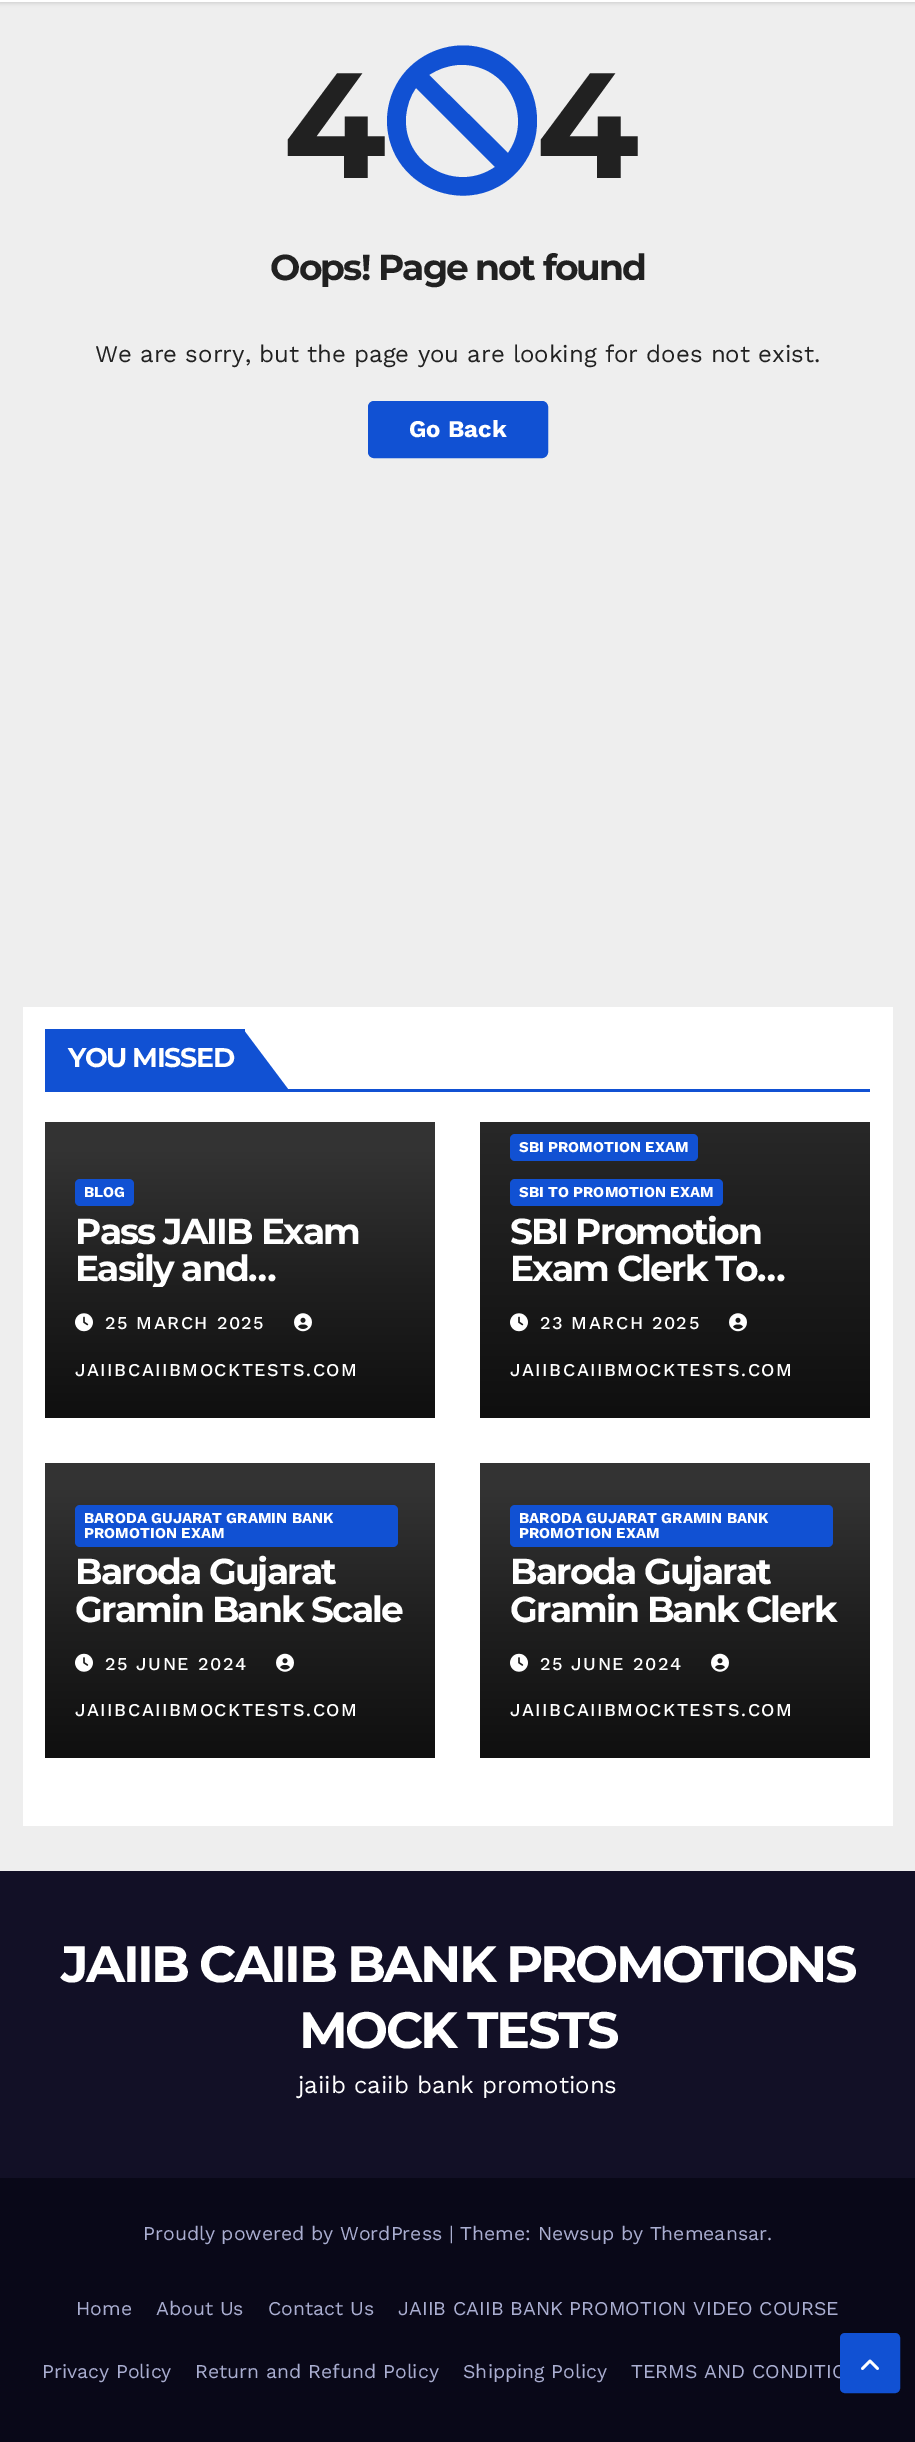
%!PS
<< /PageSize [915 2442] /PageUsesTransparency true >> setpagedevice
/rgb { 3 { 255 div 3 1 roll } repeat setrgbcolor } def
/font { [ exch dup neg 0 0 3 -1 roll 0 0 ] selectfont } def
/text { moveto show } def
/alpha { dup .setfillconstantalpha .setstrokeconstantalpha } def
/roundrect { 5 dict begin { /r /h /w /y /x } { exch def } forall
  x r add y moveto x w add y 2 copy h add r arct x w add y h add x 1 index r arct
  x y h add x y r arct x y 2 copy exch w add exch r arct closepath end } def
/shadow { 12 dict begin { /a /b /q /h /w /y /x } { exch def } forall gsave /was 0 def
  9 -2 -9 { dup b mul 4 div /e exch def 1 sub .425 mul 2.718 exch exp 1 add a .99 .min exch div /now exch def
    1 1 now sub 1 was sub div sub alpha /was now def
    w h .min e 2 mul add 0 gt { x e sub y e sub w e 2 mul add h e 2 mul add
      q e add b .6 mul add w h .min 2 div e add .min 0 .max roundrect fill } if } for grestore end } def
/picture { 5 dict begin { /h /w /y /x /name } { exch def } forall
  gsave x y translate w h scale
  w h 8 [w 0 0 h 0 0] name (r) file false 3 colorimage grestore end } def
0 .pushpdf14devicefilter
0 2442 translate 1 -1 scale
4 setmiterlimit
238 238 238 rgb
0 0 915 2442 rectfill
0 0 0 rgb
0 -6 915 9 0 2 0.15 shadow
255 255 255 rgb
0 0 915 2 rectfill
17 81 211 rgb
495 167 moveto -79 -79 rlineto -6 8 -9 18 -10 28 rcurveto -4 48 50 78 89 51 rcurveto closepath 508 153 moveto 27 -38 -3 -92 -51 -88 rcurveto -10 1 -19 4 -28 10 rcurveto closepath 387 121 moveto 1 -72 91 -103 135 -46 rcurveto 10 13 15 29 15 46 rcurveto 0 16 -5 32 -15 45 rcurveto -44 57 -134 26 -135 -45 rcurveto closepath fill
369.5 402.5 177 54 4.5 roundrect gsave fill grestore
3 setlinewidth
stroke
255 255 255 rgb
23 1007 870 819 rectfill
17 81 211 rgb
45 1089 825 3 rectfill
45 1029 200 60 rectfill
243 1089 moveto 0 -60 rlineto 45 60 rlineto closepath fill
51 51 51 rgb
45 1122 390 30 rectfill
gsave 45 1152 moveto 390 0 rlineto 0 266 rlineto -390 0 rlineto closepath clip newpath
<< /ShadingType 2 /ColorSpace /DeviceRGB /Coords [240 1152 240 1418] /Extend [true true] /Function << /FunctionType 3 /Domain [0 1] /Functions [<< /FunctionType 2 /Domain [0 1] /C0 [0.2 0.2 0.2] /C1 [0.122 0.122 0.122] /N 1 >> << /FunctionType 2 /Domain [0 1] /C0 [0.122 0.122 0.122] /C1 [0.059 0.059 0.059] /N 1 >>] /Bounds [0.5] /Encode [0 1 0 1] >> >> shfill grestore
17 81 211 rgb
75 1179 59 27 5 roundrect fill
(img_01.rgb) 75 1313 18 19 picture
(img_02.rgb) 294 1313 18 19 picture
gsave 480 1122 moveto 390 0 rlineto 0 296 rlineto -390 0 rlineto closepath clip newpath
<< /ShadingType 2 /ColorSpace /DeviceRGB /Coords [675 1014 675 1418] /Extend [true true] /Function << /FunctionType 3 /Domain [0 1] /Functions [<< /FunctionType 2 /Domain [0 1] /C0 [0.2 0.2 0.2] /C1 [0.122 0.122 0.122] /N 1 >> << /FunctionType 2 /Domain [0 1] /C0 [0.122 0.122 0.122] /C1 [0.059 0.059 0.059] /N 1 >>] /Bounds [0.5] /Encode [0 1 0 1] >> >> shfill grestore
510 1134 188 27 5 roundrect fill
510 1179 213 27 5 roundrect fill
(img_03.rgb) 510 1313 18 19 picture
(img_04.rgb) 729 1313 18 19 picture
51 51 51 rgb
45 1463 390 27 rectfill
gsave 45 1490 moveto 390 0 rlineto 0 268 rlineto -390 0 rlineto closepath clip newpath
<< /ShadingType 2 /ColorSpace /DeviceRGB /Coords [240 1490 240 1758] /Extend [true true] /Function << /FunctionType 3 /Domain [0 1] /Functions [<< /FunctionType 2 /Domain [0 1] /C0 [0.2 0.2 0.2] /C1 [0.122 0.122 0.122] /N 1 >> << /FunctionType 2 /Domain [0 1] /C0 [0.122 0.122 0.122] /C1 [0.059 0.059 0.059] /N 1 >>] /Bounds [0.5] /Encode [0 1 0 1] >> >> shfill grestore
17 81 211 rgb
75 1505 323 42 5 roundrect fill
(img_05.rgb) 75 1653 18 19 picture
(img_06.rgb) 276 1653 18 19 picture
51 51 51 rgb
480 1463 390 27 rectfill
gsave 480 1490 moveto 390 0 rlineto 0 268 rlineto -390 0 rlineto closepath clip newpath
<< /ShadingType 2 /ColorSpace /DeviceRGB /Coords [675 1490 675 1758] /Extend [true true] /Function << /FunctionType 3 /Domain [0 1] /Functions [<< /FunctionType 2 /Domain [0 1] /C0 [0.2 0.2 0.2] /C1 [0.122 0.122 0.122] /N 1 >> << /FunctionType 2 /Domain [0 1] /C0 [0.122 0.122 0.122] /C1 [0.059 0.059 0.059] /N 1 >>] /Bounds [0.5] /Encode [0 1 0 1] >> >> shfill grestore
17 81 211 rgb
510 1505 323 42 5 roundrect fill
(img_05.rgb) 510 1653 18 19 picture
(img_06.rgb) 711 1653 18 19 picture
18 16 38 rgb
0 1871 915 307 rectfill
9 8 24 rgb
0 2178 915 264 rectfill
0 0 0 rgb
840 2334 60 60 5 4 0.12 shadow
843 2340 54 54 1.5 1 0.2 shadow
840 2336 60 60 5 1.5 0.14 shadow
/Montserrat-Bold 150 font
33 33 33 rgb
283 178 moveto -8 0 (4) ashow
536 178 moveto -8 0 (4) ashow
/Montserrat-Bold 36 font
270 280 moveto -1.8 0 (Oops! Page not found) ashow
/WorkSans-Regular 24 font
(We are sorry, but the page you are looking for does not exist.) 95 362 text
/WorkSans-Bold 24 font
255 255 255 rgb
(Go Back) 409 437 text
/Montserrat-Bold 27 font
68 1067 moveto -1.4 0 (YOU MISSED) ashow
/WorkSans-Bold 15 font
(BLOG) 84 1197 text
/Montserrat-Bold 36 font
75 1244 moveto -1.8 0 (Pass JAIIB Exam) ashow
gsave
75 1212 330 75 rectclip
75 1281 moveto -1.8 0 (Easily and…) ashow
grestore
/WorkSans-Medium 18 font
105 1329 moveto 1.5 0 (25 MARCH 2025) ashow
75 1376 moveto 1.5 0 (JAIIBCAIIBMOCKTESTS.COM) ashow
/WorkSans-Bold 15 font
(SBI PROMOTION EXAM) 519 1152 text
(SBI TO PROMOTION EXAM) 519 1197 text
/Montserrat-Bold 36 font
510 1244 moveto -1.8 0 (SBI Promotion) ashow
510 1281 moveto -1.8 0 (Exam Clerk To…) ashow
/WorkSans-Medium 18 font
540 1329 moveto 1.5 0 (23 MARCH 2025) ashow
510 1376 moveto 1.5 0 (JAIIBCAIIBMOCKTESTS.COM) ashow
/WorkSans-Bold 15 font
(BARODA GUJARAT GRAMIN BANK) 84 1523 text
(PROMOTION EXAM) 84 1538 text
/Montserrat-Bold 36 font
75 1584 moveto -1.8 0 (Baroda Gujarat) ashow
75 1622 moveto -1.8 0 (Gramin Bank Scale) ashow
/WorkSans-Medium 18 font
105 1670 moveto 1.5 0 (25 JUNE 2024) ashow
75 1716 moveto 1.5 0 (JAIIBCAIIBMOCKTESTS.COM) ashow
/WorkSans-Bold 15 font
(BARODA GUJARAT GRAMIN BANK) 519 1523 text
(PROMOTION EXAM) 519 1538 text
/Montserrat-Bold 36 font
510 1584 moveto -1.8 0 (Baroda Gujarat) ashow
510 1622 moveto -1.8 0 (Gramin Bank Clerk) ashow
/WorkSans-Medium 18 font
540 1670 moveto 1.5 0 (25 JUNE 2024) ashow
510 1716 moveto 1.5 0 (JAIIBCAIIBMOCKTESTS.COM) ashow
/Montserrat-Bold 51 font
61 1982 moveto -2.55 0 (JAIIB CAIIB BANK PROMOTIONS) ashow
299 2048 moveto -2.55 0 (MOCK TESTS) ashow
/WorkSans-Regular 24 font
(jaiib caiib bank promotions) 298 2093 text
/WorkSans-Regular 19.5 font
170 174 209 rgb
(Proudly powered by WordPress | Theme: Newsup by Themeansar.) 143 2240 text
(Home) 76 2315 text
(About Us) 156 2315 text
(Contact Us) 268 2315 text
(JAIIB CAIIB BANK PROMOTION VIDEO COURSE) 398 2315 text
(Privacy Policy) 42 2378 text
(Return and Refund Policy) 195 2378 text
(Shipping Policy) 463 2378 text
(TERMS AND CONDITIO) 631 2378 text
17 81 211 rgb
841.5 2334.5 57 57 3.5 roundrect gsave fill grestore
stroke
(img_07.rgb) 861 2359 18 11 picture
.poppdf14devicefilter showpage
